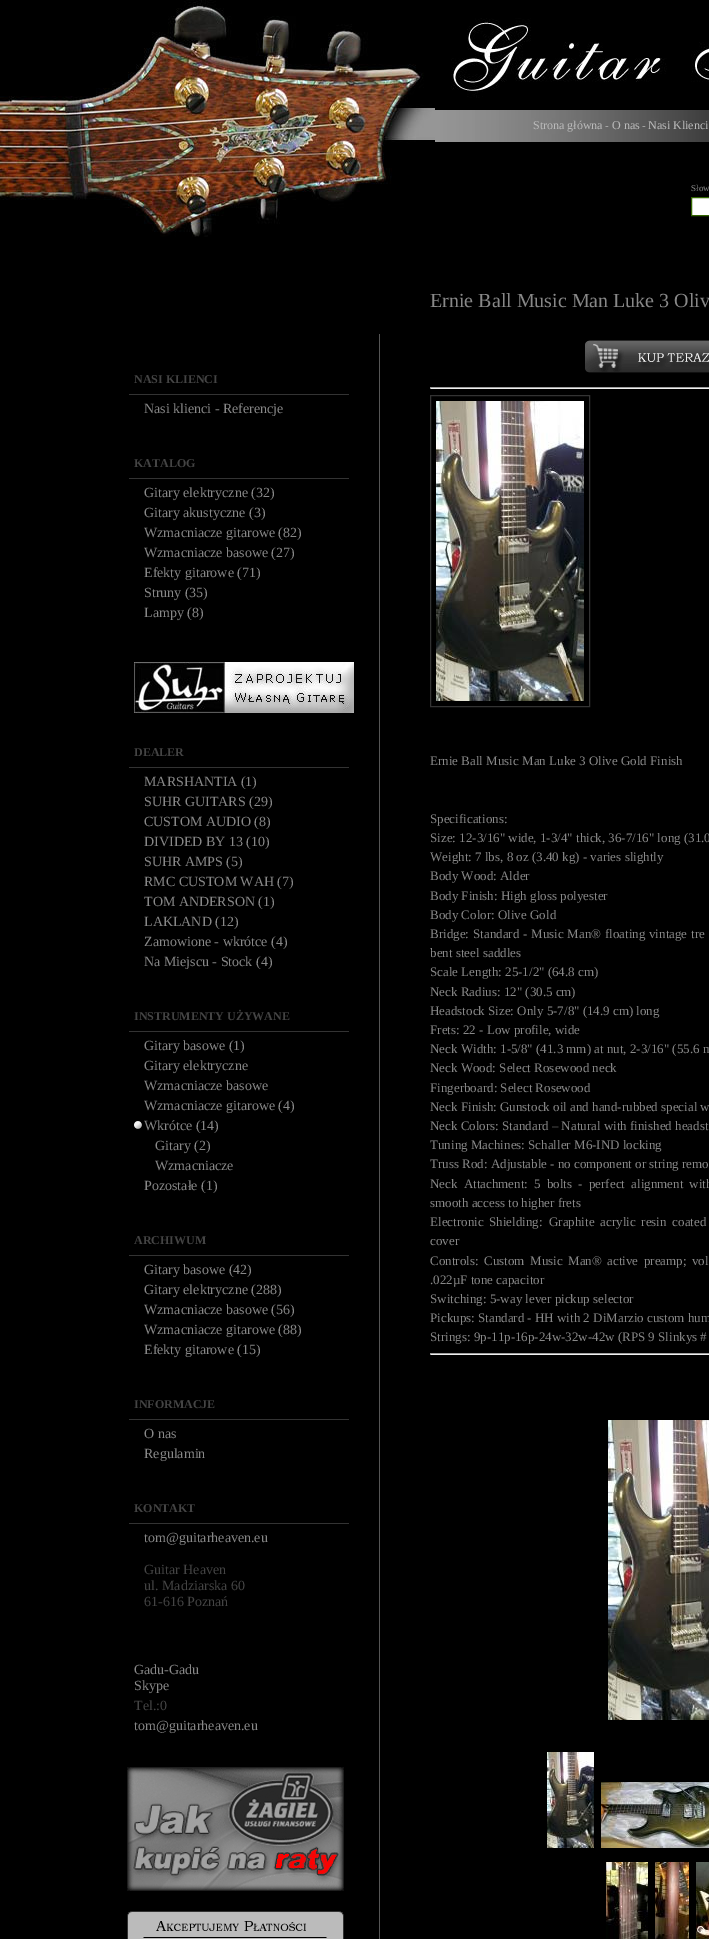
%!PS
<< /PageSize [709 1939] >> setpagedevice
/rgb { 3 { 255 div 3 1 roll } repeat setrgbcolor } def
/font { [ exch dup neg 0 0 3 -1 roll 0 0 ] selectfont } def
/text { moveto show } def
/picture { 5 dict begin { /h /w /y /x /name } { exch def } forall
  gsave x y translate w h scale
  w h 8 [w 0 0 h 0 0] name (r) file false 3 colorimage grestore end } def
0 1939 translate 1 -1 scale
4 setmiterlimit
0 0 0 rgb
0 0 709 1939 rectfill
(img_01.rgb) 0 0 435 237 picture
(img_02.rgb) 451 18 258 80 picture
(img_03.rgb) 435 110 274 32 picture
255 255 255 rgb
691.5 197.5 moveto 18 0 rlineto 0 18 rlineto -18 0 rlineto closepath gsave fill grestore
51 102 0 rgb
stroke
85 85 85 rgb
379 334 1 1605 rectfill
51 51 51 rgb
129 394 220 1 rectfill
129 478 220 1 rectfill
(img_04.rgb) 134 662 220 51 picture
129 767 220 1 rectfill
129 1031 220 1 rectfill
(img_05.rgb) 134 1121 8 8 picture
129 1255 220 1 rectfill
129 1419 220 1 rectfill
129 1523 220 1 rectfill
(img_06.rgb) 127 1767 217 124 picture
(img_07.rgb) 127 1911 217 28 picture
(img_08.rgb) 585 340 124 33 picture
159 159 159 rgb
430 387 279 1 rectfill
238 238 238 rgb
430 388 279 1 rectfill
159 159 159 rgb
430 387 1 2 rectfill
51 51 51 rgb
430.5 395.5 159 311 rectstroke
(img_09.rgb) 436 401 148 300 picture
159 159 159 rgb
430 1353 279 1 rectfill
238 238 238 rgb
430 1354 279 1 rectfill
159 159 159 rgb
430 1353 1 2 rectfill
(img_10.rgb) 608 1420 101 300 picture
(img_11.rgb) 547 1752 47 96 picture
(img_12.rgb) 601 1782 108 66 picture
(img_13.rgb) 606 1862 42 77 picture
(img_14.rgb) 655 1862 34 77 picture
(img_15.rgb) 696 1862 13 77 picture
/LiberationSerif-Regular 12 font
187 187 187 rgb
(Strona główna) 533 129 text
/LiberationSerif-Regular 11 font
(-) 605 129 text
/LiberationSerif-Regular 12 font
(O nas) 612 129 text
/LiberationSerif-Regular 11 font
(-) 642 129 text
/LiberationSerif-Regular 12 font
(Nasi Klienci) 648 129 text
/LiberationSerif-Regular 9 font
136 136 136 rgb
(Słow) 691 191 text
/LiberationSerif-Bold 12 font
68 68 68 rgb
(NASI KLIENCI) 134 383 text
/LiberationSerif-Regular 14 font
136 136 136 rgb
(Nasi klienci - Referencje) 144 413 text
/LiberationSerif-Bold 12 font
68 68 68 rgb
(KATALOG) 134 467 text
/LiberationSerif-Regular 14 font
136 136 136 rgb
(Gitary elektryczne \(32\)) 144 497 text
(Gitary akustyczne \(3\)) 144 517 text
(Wzmacniacze gitarowe \(82\)) 144 537 text
(Wzmacniacze basowe \(27\)) 144 557 text
(Efekty gitarowe \(71\)) 144 577 text
(Struny \(35\)) 144 597 text
(Lampy \(8\)) 144 617 text
/LiberationSerif-Bold 12 font
68 68 68 rgb
(DEALER) 134 756 text
/LiberationSerif-Regular 14 font
136 136 136 rgb
(MARSHANTIA \(1\)) 144 786 text
(SUHR GUITARS \(29\)) 144 806 text
(CUSTOM AUDIO \(8\)) 144 826 text
(DIVIDED BY 13 \(10\)) 144 846 text
(SUHR AMPS \(5\)) 144 866 text
(RMC CUSTOM WAH \(7\)) 144 886 text
(TOM ANDERSON \(1\)) 144 906 text
(LAKLAND \(12\)) 144 926 text
(Zamowione - wkrótce \(4\)) 144 946 text
(Na Miejscu - Stock \(4\)) 144 966 text
/LiberationSerif-Bold 12 font
68 68 68 rgb
(INSTRUMENTY UŻYWANE) 134 1020 text
/LiberationSerif-Regular 14 font
136 136 136 rgb
(Gitary basowe \(1\)) 144 1050 text
(Gitary elektryczne) 144 1070 text
(Wzmacniacze basowe) 144 1090 text
(Wzmacniacze gitarowe \(4\)) 144 1110 text
(Wkrótce \(14\)) 144 1130 text
(Gitary \(2\)) 155 1150 text
(Wzmacniacze) 155 1170 text
(Pozostałe \(1\)) 144 1190 text
/LiberationSerif-Bold 12 font
68 68 68 rgb
(ARCHIWUM) 134 1244 text
/LiberationSerif-Regular 14 font
136 136 136 rgb
(Gitary basowe \(42\)) 144 1274 text
(Gitary elektryczne \(288\)) 144 1294 text
(Wzmacniacze basowe \(56\)) 144 1314 text
(Wzmacniacze gitarowe \(88\)) 144 1334 text
(Efekty gitarowe \(15\)) 144 1354 text
/LiberationSerif-Bold 12 font
68 68 68 rgb
(INFORMACJE) 134 1408 text
/LiberationSerif-Regular 14 font
136 136 136 rgb
(O nas) 144 1438 text
(Regulamin) 144 1458 text
/LiberationSerif-Bold 12 font
68 68 68 rgb
(KONTAKT) 134 1512 text
/LiberationSerif-Regular 14 font
136 136 136 rgb
(tom@guitarheaven.eu) 144 1542 text
68 68 68 rgb
(Guitar Heaven) 144 1574 text
(ul. Madziarska 60) 144 1590 text
(61-616 Poznań) 144 1606 text
136 136 136 rgb
(Gadu-Gadu) 134 1674 text
(Skype) 134 1690 text
68 68 68 rgb
(Tel.:0) 134 1710 text
136 136 136 rgb
(tom@guitarheaven.eu) 134 1730 text
/LiberationSerif-Regular 20 font
(Ernie Ball Music Man Luke 3 Oliv) 430 307 text
/LiberationSerif-Regular 13 font
(Ernie Ball Music Man Luke 3 Olive Gold Finish) 430 765 text
(Specifications:) 430 823 text
(Size: 12-3/16" wide, 1-3/4" thick, 36-7/16" long \(31.0) 430 842 text
(Weight: 7 lbs, 8 oz \(3.40 kg\) - varies slightly) 430 861 text
(Body Wood: Alder) 430 880 text
(Body Finish: High gloss polyester) 430 900 text
(Body Color: Olive Gold) 430 919 text
(Bridge:) 430 938 text
473 938 moveto 0.5 0 32 (Standard - Music Man® floating vintage tre) widthshow
(bent steel saddles) 430 957 text
(Scale Length: 25-1/2" \(64.8 cm\)) 430 976 text
(Neck Radius: 12" \(30.5 cm\)) 430 996 text
(Headstock Size: Only 5-7/8" \(14.9 cm\) long) 430 1015 text
(Frets: 22 - Low profile, wide) 430 1034 text
(Neck Width: 1-5/8" \(41.3 mm\) at nut, 2-3/16" \(55.6 m) 430 1053 text
(Neck Wood: Select Rosewood neck) 430 1072 text
(Fingerboard: Select Rosewood) 430 1092 text
(Neck Finish: Gunstock oil and hand-rubbed special w) 430 1111 text
(Neck Colors: Standard – Natural with finished headst) 430 1130 text
(Tuning Machines: Schaller M6-IND locking) 430 1149 text
(Truss Rod: Adjustable - no component or string remo) 430 1168 text
430 1188 moveto 3 0 32 (Neck Attachment:) widthshow
534 1188 moveto 3 0 32 (5 bolts - perfect alignment with) widthshow
(smooth access to higher frets) 430 1207 text
430 1226 moveto 2.5 0 32 (Electronic Shielding:) widthshow
549 1226 moveto 2.5 0 32 (Graphite acrylic resin coated) widthshow
(cover) 430 1245 text
(Controls:) 430 1265 text
484 1265 moveto 2.25 0 32 (Custom Music Man® active preamp; vol) widthshow
(.022µF tone capacitor) 430 1284 text
(Switching: 5-way lever pickup selector) 430 1303 text
(Pickups: Standard - HH with 2 DiMarzio custom hum) 430 1322 text
(Strings: 9p-11p-16p-24w-32w-42w \(RPS 9 Slinkys #) 430 1341 text
showpage
